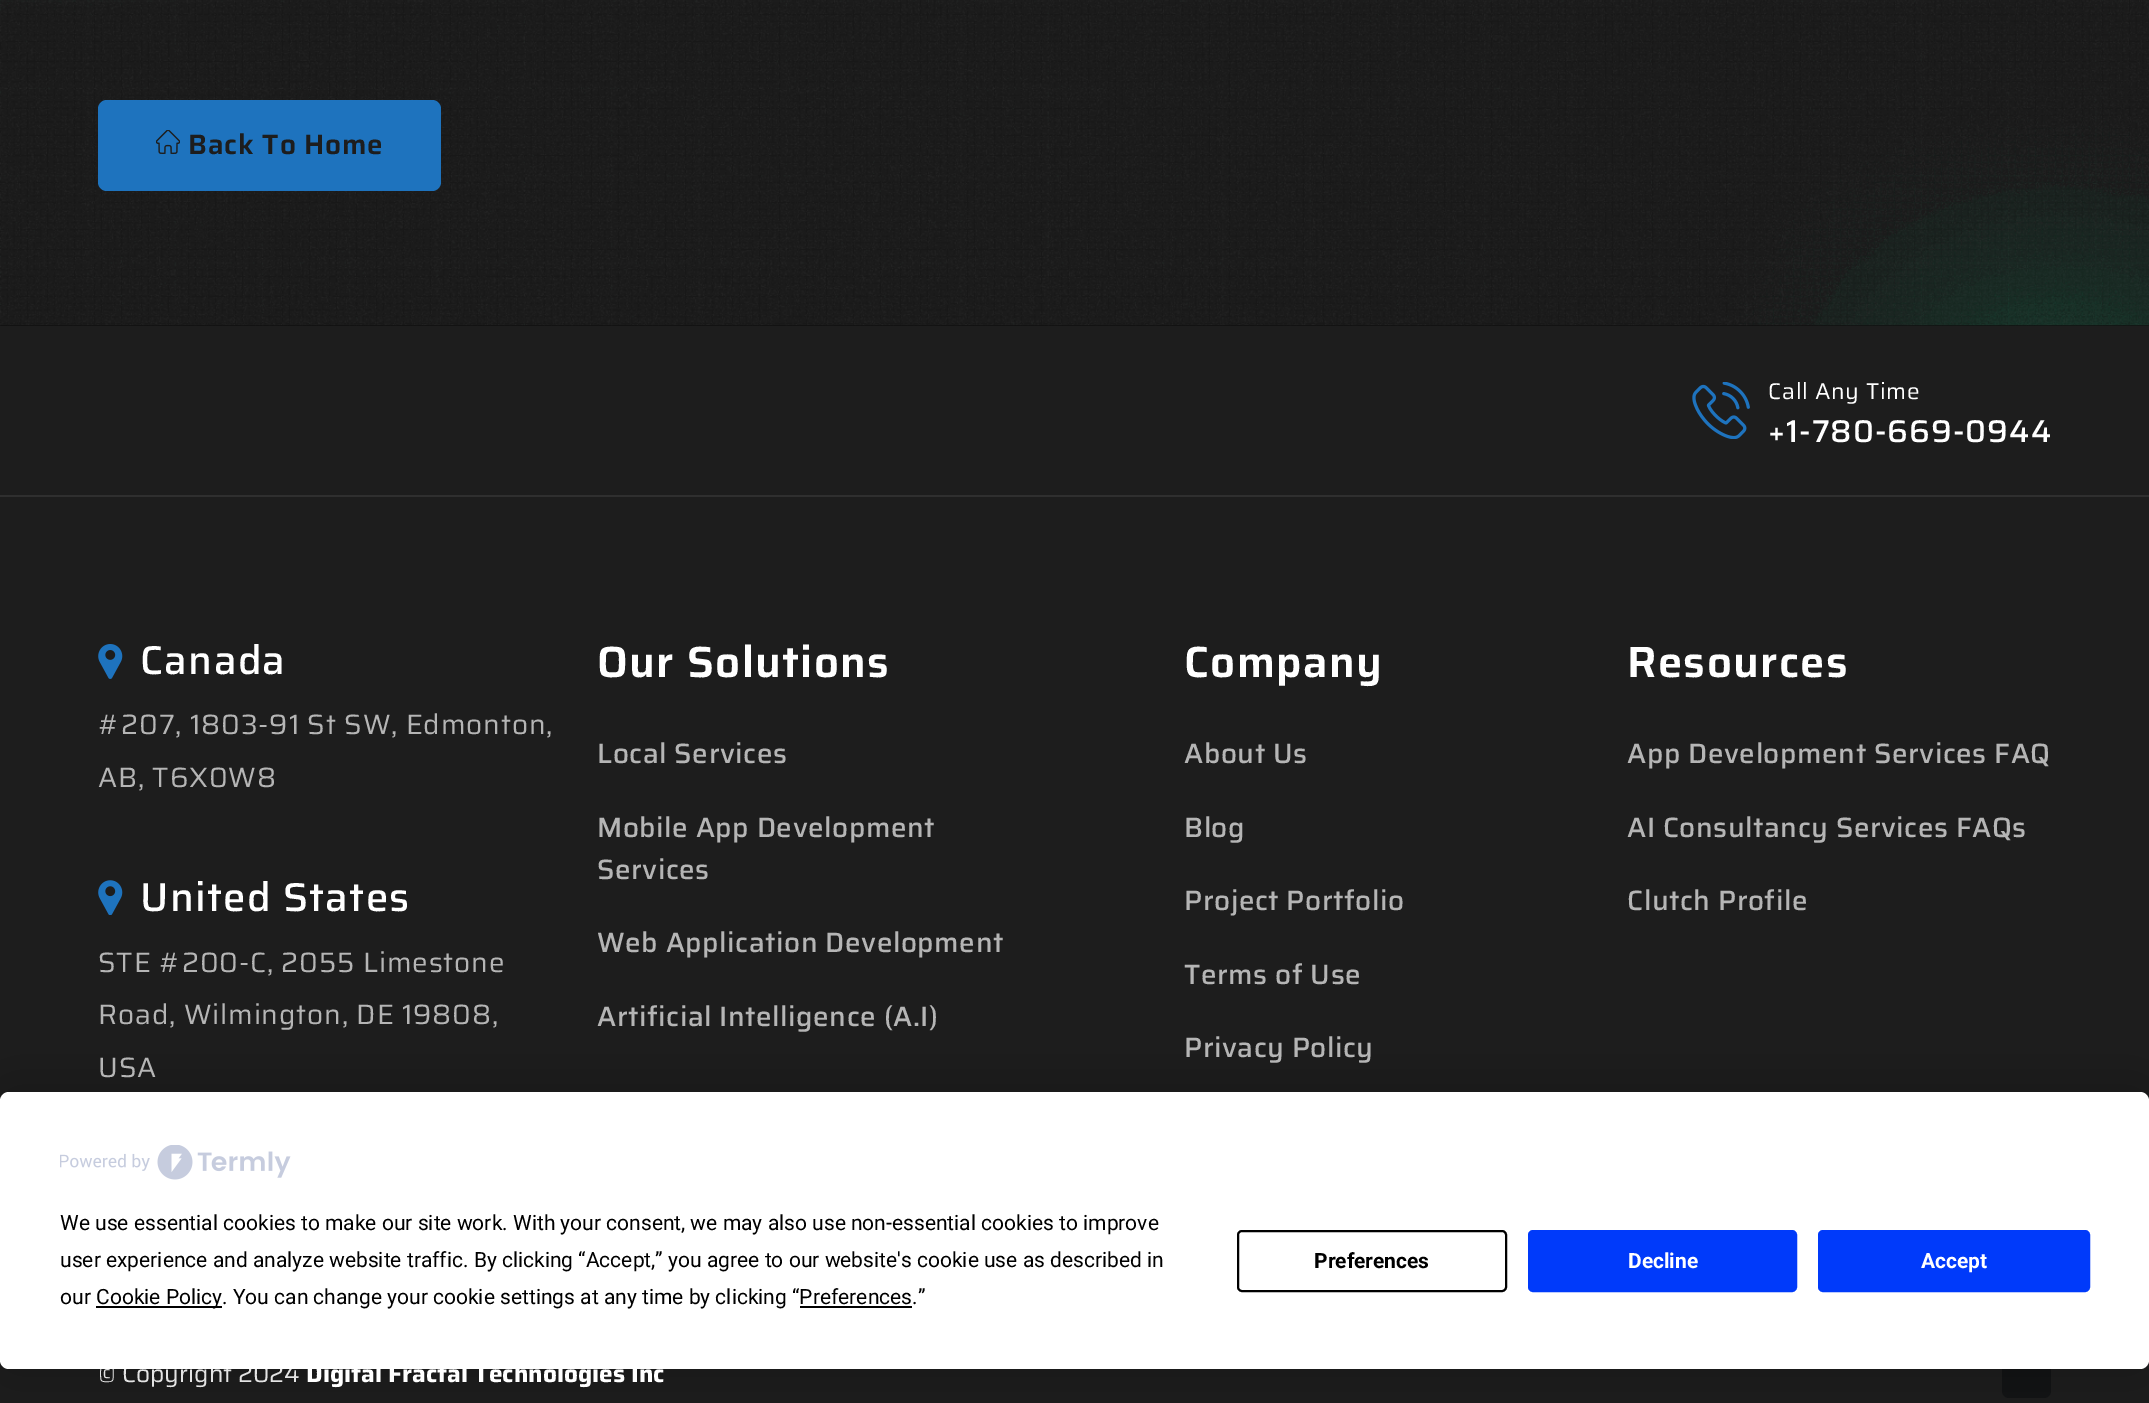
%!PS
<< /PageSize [2149 1403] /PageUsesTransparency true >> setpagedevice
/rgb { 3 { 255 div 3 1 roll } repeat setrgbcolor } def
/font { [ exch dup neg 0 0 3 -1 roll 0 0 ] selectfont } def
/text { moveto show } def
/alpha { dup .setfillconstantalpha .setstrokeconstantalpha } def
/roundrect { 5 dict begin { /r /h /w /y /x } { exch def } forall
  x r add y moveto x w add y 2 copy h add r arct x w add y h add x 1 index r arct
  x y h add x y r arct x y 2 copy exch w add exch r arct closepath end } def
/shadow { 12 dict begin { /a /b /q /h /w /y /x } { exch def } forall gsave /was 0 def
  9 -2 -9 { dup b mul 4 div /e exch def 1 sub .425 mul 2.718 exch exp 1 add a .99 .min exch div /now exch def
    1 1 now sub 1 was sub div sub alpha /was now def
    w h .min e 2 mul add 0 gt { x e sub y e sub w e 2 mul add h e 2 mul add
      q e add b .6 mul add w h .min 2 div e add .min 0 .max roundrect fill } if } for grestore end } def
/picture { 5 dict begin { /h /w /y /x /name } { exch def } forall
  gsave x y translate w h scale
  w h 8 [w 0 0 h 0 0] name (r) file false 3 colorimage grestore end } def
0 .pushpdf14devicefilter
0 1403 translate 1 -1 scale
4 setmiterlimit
15 15 15 rgb
0 0 2149 1403 rectfill
(img_01.rgb) 0 0 2149 326 picture
30 115 190 rgb
98 100 343 91 9 roundrect fill
(img_02.rgb) 156 130 24 24 picture
29 29 29 rgb
0 326 2149 1077 rectfill
47 47 47 rgb
0 495 2149 2 rectfill
(img_03.rgb) 1692 382 58 57 picture
(img_04.rgb) 98 644 25 35 picture
(img_05.rgb) 98 880 25 35 picture
18 19 20 rgb
2002 1349 49 49 7 roundrect fill
0 0 0 rgb
0 1092 2149 277 9 30.5 0.25 shadow
/Saira-SemiBold 28 font
29 29 29 rgb
188 154 moveto 0.85 0 (Back To Home) ashow
/Saira-Regular 22.75 font
255 255 255 rgb
1768 399 moveto 0.75 0 (Call Any Time) ashow
/Saira-Medium 31.5 font
1768 442 moveto 1 0 (+1-780-669-0944) ashow
/Saira-Medium 40.25 font
140 674 moveto 1.25 0 (Canada) ashow
/Saira-Regular 28 font
181 181 181 rgb
98 734 moveto 0.85 0 (#207, 1803-91 St SW, Edmonton,) ashow
98 787 moveto 0.85 0 (AB, T6X0W8) ashow
/Saira-Medium 40.25 font
255 255 255 rgb
140 911 moveto 1.25 0 (United States) ashow
/Saira-Regular 28 font
181 181 181 rgb
98 972 moveto 0.85 0 (STE #200-C, 2055 Limestone) ashow
98 1024 moveto 0.85 0 (Road, Wilmington, DE 19808,) ashow
98 1077 moveto 0.85 0 (USA) ashow
/Saira-SemiBold 43.75 font
255 255 255 rgb
597 677 moveto 1.25 0 (Our Solutions) ashow
/Saira-Medium 28 font
181 181 181 rgb
597 763 moveto 0.55 0 (Local Services) ashow
597 837 moveto 0.55 0 (Mobile App Development) ashow
597 879 moveto 0.55 0 (Services) ashow
597 952 moveto 0.55 0 (Web Application Development) ashow
597 1026 moveto 0.55 0 (Artificial Intelligence \(A.I\)) ashow
/Saira-SemiBold 43.75 font
255 255 255 rgb
1184 677 moveto 1.25 0 (Company) ashow
/Saira-Medium 28 font
181 181 181 rgb
1184 763 moveto 0.55 0 (About Us) ashow
1184 837 moveto 0.55 0 (Blog) ashow
1184 910 moveto 0.55 0 (Project Portfolio) ashow
1184 984 moveto 0.55 0 (Terms of Use) ashow
1184 1057 moveto 0.55 0 (Privacy Policy) ashow
/Saira-SemiBold 43.75 font
255 255 255 rgb
1627 677 moveto 1.25 0 (Resources) ashow
/Saira-Medium 28 font
181 181 181 rgb
1627 763 moveto 0.55 0 (App Development Services FAQ) ashow
1627 837 moveto 0.55 0 (AI Consultancy Services FAQs) ashow
1627 910 moveto 0.55 0 (Clutch Profile) ashow
/Saira-Regular 24.5 font
228 228 228 rgb
(© Copyright 2024) 98 1382 text
/Saira-Bold 24.5 font
255 255 255 rgb
(Digital Fractal Technologies Inc) 306 1382 text
0 1092 2149 277 9 roundrect fill
(img_06.rgb) 60 1145 231 35 picture
/Roboto-Regular 21 font
0 0 0 rgb
(We use essential cookies to make our site work. With your consent, we may also use non-essential cookies to improve) 60 1230 text
(user experience and analyze website traffic. By clicking “Accept,” you agree to our website's cookie use as described in) 60 1267 text
(our) 60 1304 text
96 1306 126 2 rectfill
(Cookie Policy. You can change your cookie settings at any time by clicking “Preferences.”) 96 1304 text
800 1306 112 2 rectfill
2 setlinewidth
1238 1231 268 60 4 roundrect stroke
/Roboto-Bold 21 font
(Preferences) 1314 1268 text
0 58 250 rgb
1529 1231 267 60 4 roundrect gsave fill grestore
stroke
255 255 255 rgb
(Decline) 1628 1268 text
0 58 250 rgb
1819 1231 270 60 4 roundrect gsave fill grestore
stroke
255 255 255 rgb
(Accept) 1921 1268 text
.poppdf14devicefilter showpage
